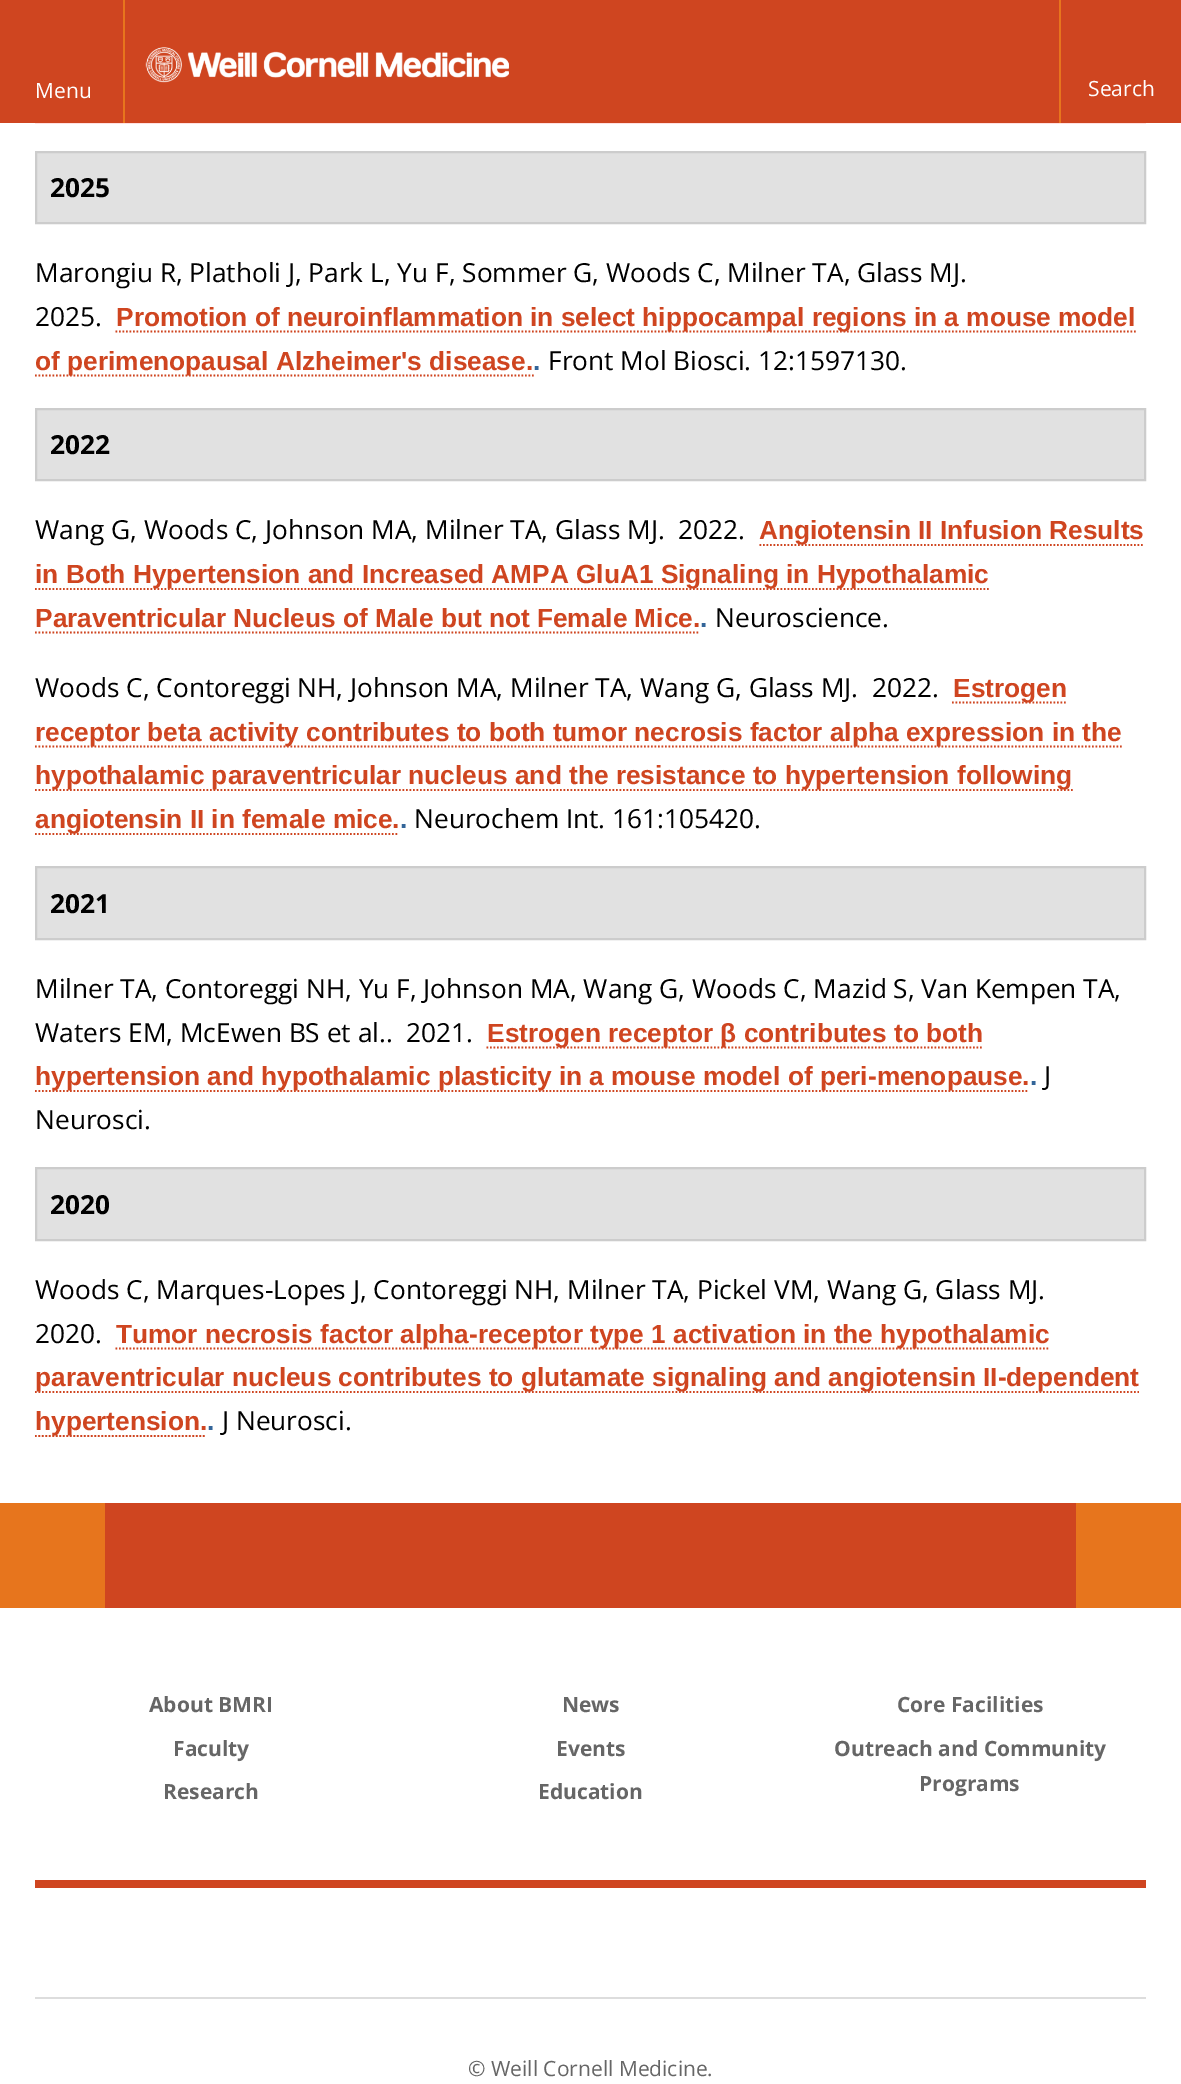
%!PS
<< /PageSize [1181 2084] >> setpagedevice
/rgb { 3 { 255 div 3 1 roll } repeat setrgbcolor } def
/font { [ exch dup neg 0 0 3 -1 roll 0 0 ] selectfont } def
/text { moveto show } def
/picture { 5 dict begin { /h /w /y /x /name } { exch def } forall
  gsave x y translate w h scale
  w h 8 [w 0 0 h 0 0] name (r) file false 3 colorimage grestore end } def
0 2084 translate 1 -1 scale
4 setmiterlimit
255 255 255 rgb
0 0 1181 2084 rectfill
207 69 32 rgb
0 0 1181 123 rectfill
(img_01.rgb) 145 47 364 36 picture
231 117 29 rgb
123 0 2 123 rectfill
1059 0 2 123 rectfill
255 225 225 rgb
35 123 1111 1 rectfill
225 225 225 rgb
36 152 moveto 1109 0 rlineto 0 71 rlineto -1109 0 rlineto closepath gsave fill grestore
204 204 204 rgb
2 setlinewidth
stroke
207 69 32 rgb
1.8 setlinewidth
[1.75 1.75] 0 setdash
115.5 331.5 moveto 1020.5 0 rlineto stroke
35 375.5 moveto 499 0 rlineto stroke
225 225 225 rgb
36 409 moveto 1109 0 rlineto 0 71 rlineto -1109 0 rlineto closepath gsave fill grestore
204 204 204 rgb
2 setlinewidth
[] 0 setdash
stroke
207 69 32 rgb
1.8 setlinewidth
[1.75 1.75] 0 setdash
759.5 545 moveto 385 0 rlineto stroke
35 589 moveto 954 0 rlineto stroke
35 632.5 moveto 665 0 rlineto stroke
952 702.5 moveto 114 0 rlineto stroke
35 746.5 moveto 1087 0 rlineto stroke
35 790 moveto 1038 0 rlineto stroke
35 834 moveto 364 0 rlineto stroke
225 225 225 rgb
36 867 moveto 1109 0 rlineto 0 72 rlineto -1109 0 rlineto closepath gsave fill grestore
204 204 204 rgb
2 setlinewidth
[] 0 setdash
stroke
207 69 32 rgb
1.8 setlinewidth
[1.75 1.75] 0 setdash
486.5 1047.5 moveto 497 0 rlineto stroke
35 1091 moveto 994 0 rlineto stroke
225 225 225 rgb
36 1168 moveto 1109 0 rlineto 0 72 rlineto -1109 0 rlineto closepath gsave fill grestore
204 204 204 rgb
2 setlinewidth
[] 0 setdash
stroke
207 69 32 rgb
1.8 setlinewidth
[1.75 1.75] 0 setdash
115.5 1348.5 moveto 934.5 0 rlineto stroke
35 1392 moveto 1104 0 rlineto stroke
35 1436 moveto 171.5 0 rlineto stroke
105 1503 971 105 rectfill
231 117 29 rgb
0 1503 105 105 rectfill
1076 1503 105 105 rectfill
207 69 32 rgb
35 1880 1111 8 rectfill
221 221 221 rgb
35 1997 1111 2 rectfill
/OpenSans-Regular 21 font
255 255 255 rgb
(Menu) 35 98 text
(Search) 1088 96 text
/OpenSans-Bold 26.25 font
0 0 0 rgb
(2025) 50 197 text
/OpenSans-Regular 26.25 font
(Marongiu R, Platholi J, Park L, Yu F, Sommer G, Woods C, Milner TA, Glass MJ.) 35 282 text
(2025.) 35 326 text
/LiberationSans-Bold 26.25 font
207 69 32 rgb
(Promotion of neuroinflammation in select hippocampal regions in a mouse model) 116 326 text
(of perimenopausal Alzheimer's disease.) 35 370 text
51 101 153 rgb
(.) 533 370 text
/OpenSans-Regular 26.25 font
0 0 0 rgb
(Front Mol Biosci. 12:1597130.) 548 370 text
/OpenSans-Bold 26.25 font
(2022) 50 454 text
/OpenSans-Regular 26.25 font
(Wang G, Woods C, Johnson MA, Milner TA, Glass MJ.) 35 539 text
(2022.) 678 539 text
/LiberationSans-Bold 26.25 font
207 69 32 rgb
(Angiotensin II Infusion Results) 759 539 text
(in Both Hypertension and Increased AMPA GluA1 Signaling in Hypothalamic) 35 583 text
(Paraventricular Nucleus of Male but not Female Mice.) 35 627 text
51 101 153 rgb
(.) 700 627 text
/OpenSans-Regular 26.25 font
0 0 0 rgb
(Neuroscience.) 715 627 text
(Woods C, Contoreggi NH, Johnson MA, Milner TA, Wang G, Glass MJ.) 35 697 text
(2022.) 872 697 text
/LiberationSans-Bold 26.25 font
207 69 32 rgb
(Estrogen) 953 697 text
(receptor beta activity contributes to both tumor necrosis factor alpha expression in the) 35 741 text
(hypothalamic paraventricular nucleus and the resistance to hypertension following) 35 784 text
(angiotensin II in female mice.) 35 828 text
51 101 153 rgb
(.) 400 828 text
/OpenSans-Regular 26.25 font
0 0 0 rgb
(Neurochem Int. 161:105420.) 414 828 text
/OpenSans-Bold 26.25 font
(2021) 50 913 text
/OpenSans-Regular 26.25 font
(Milner TA, Contoreggi NH, Yu F, Johnson MA, Wang G, Woods C, Mazid S, Van Kempen TA,) 35 998 text
(Waters EM, McEwen BS et al..) 35 1042 text
(2021.) 406 1042 text
/LiberationSans-Bold 26.25 font
207 69 32 rgb
(Estrogen receptor β contributes to both) 487 1042 text
(hypertension and hypothalamic plasticity in a mouse model of peri-menopause.) 35 1085 text
51 101 153 rgb
(.) 1030 1085 text
/OpenSans-Regular 26.25 font
0 0 0 rgb
(J) 1044 1085 text
(Neurosci.) 35 1129 text
/OpenSans-Bold 26.25 font
(2020) 50 1214 text
/OpenSans-Regular 26.25 font
(Woods C, Marques-Lopes J, Contoreggi NH, Milner TA, Pickel VM, Wang G, Glass MJ.) 35 1299 text
(2020.) 35 1343 text
/LiberationSans-Bold 26.25 font
207 69 32 rgb
(Tumor necrosis factor alpha-receptor type 1 activation in the hypothalamic) 116 1343 text
(paraventricular nucleus contributes to glutamate signaling and angiotensin II-dependent) 35 1386 text
(hypertension.) 35 1430 text
51 101 153 rgb
(.) 207 1430 text
/OpenSans-Regular 26.25 font
0 0 0 rgb
(J Neurosci.) 222 1430 text
/OpenSans-Bold 21 font
102 102 102 rgb
(About BMRI) 149 1712 text
(News) 562 1712 text
(Core Facilities) 897 1712 text
(Faculty) 173 1756 text
(Events) 556 1756 text
(Outreach and Community) 834 1756 text
(Programs) 919 1791 text
(Research) 163 1799 text
(Education) 538 1799 text
/OpenSans-Regular 21 font
(© Weill Cornell Medicine.) 468 2076 text
showpage
